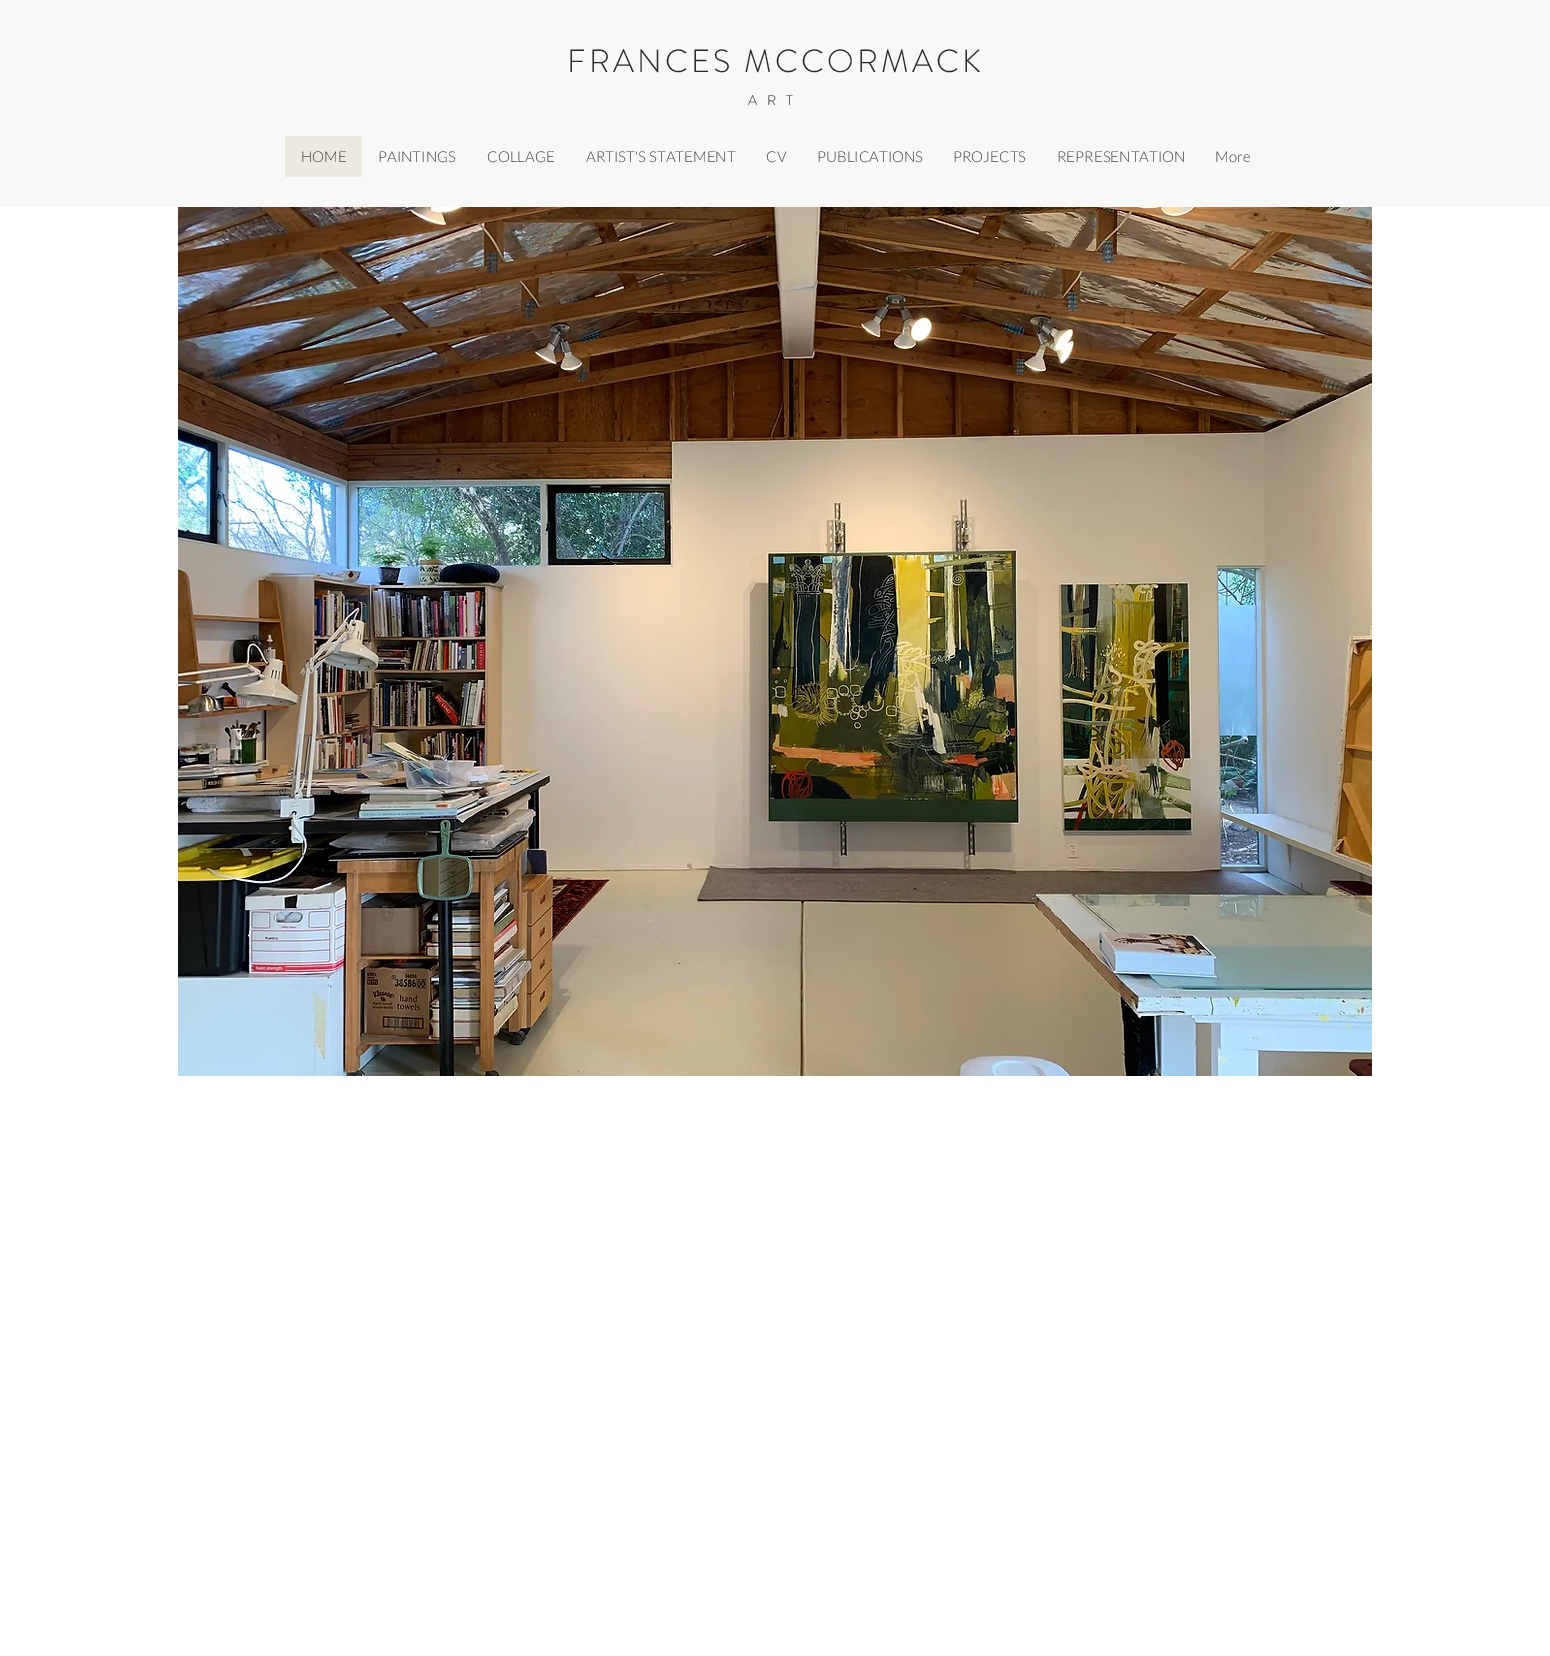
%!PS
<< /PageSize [1550 1656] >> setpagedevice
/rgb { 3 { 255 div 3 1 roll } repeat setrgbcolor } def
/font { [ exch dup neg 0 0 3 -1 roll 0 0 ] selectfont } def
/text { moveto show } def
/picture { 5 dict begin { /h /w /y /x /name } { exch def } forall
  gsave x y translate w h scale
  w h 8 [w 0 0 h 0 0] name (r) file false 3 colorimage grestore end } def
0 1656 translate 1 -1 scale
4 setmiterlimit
255 255 255 rgb
0 0 1550 1656 rectfill
248 248 248 rgb
0 0 1550 207 rectfill
237 233 225 rgb
285 136 77 41 rectfill
(img_01.rgb) 178 207 1194 869 picture
/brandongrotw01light-Light 32 font
41 41 41 rgb
567 72 moveto 3.25 0 (FRANCES MCCORMACK) ashow
/brandongrotw01light-Light 14 font
748 105 moveto 10 0 (ART) ashow
/Lato-Light 15 font
68 68 68 rgb
(HOME) 301 162 text
(PAINTINGS) 378 162 text
(COLLAGE) 487 162 text
(ARTIST'S STATEMENT) 586 162 text
(CV) 766 162 text
(PUBLICATIONS) 817 162 text
(PROJECTS) 953 162 text
(REPRESENTATION) 1057 162 text
(More) 1215 162 text
showpage
